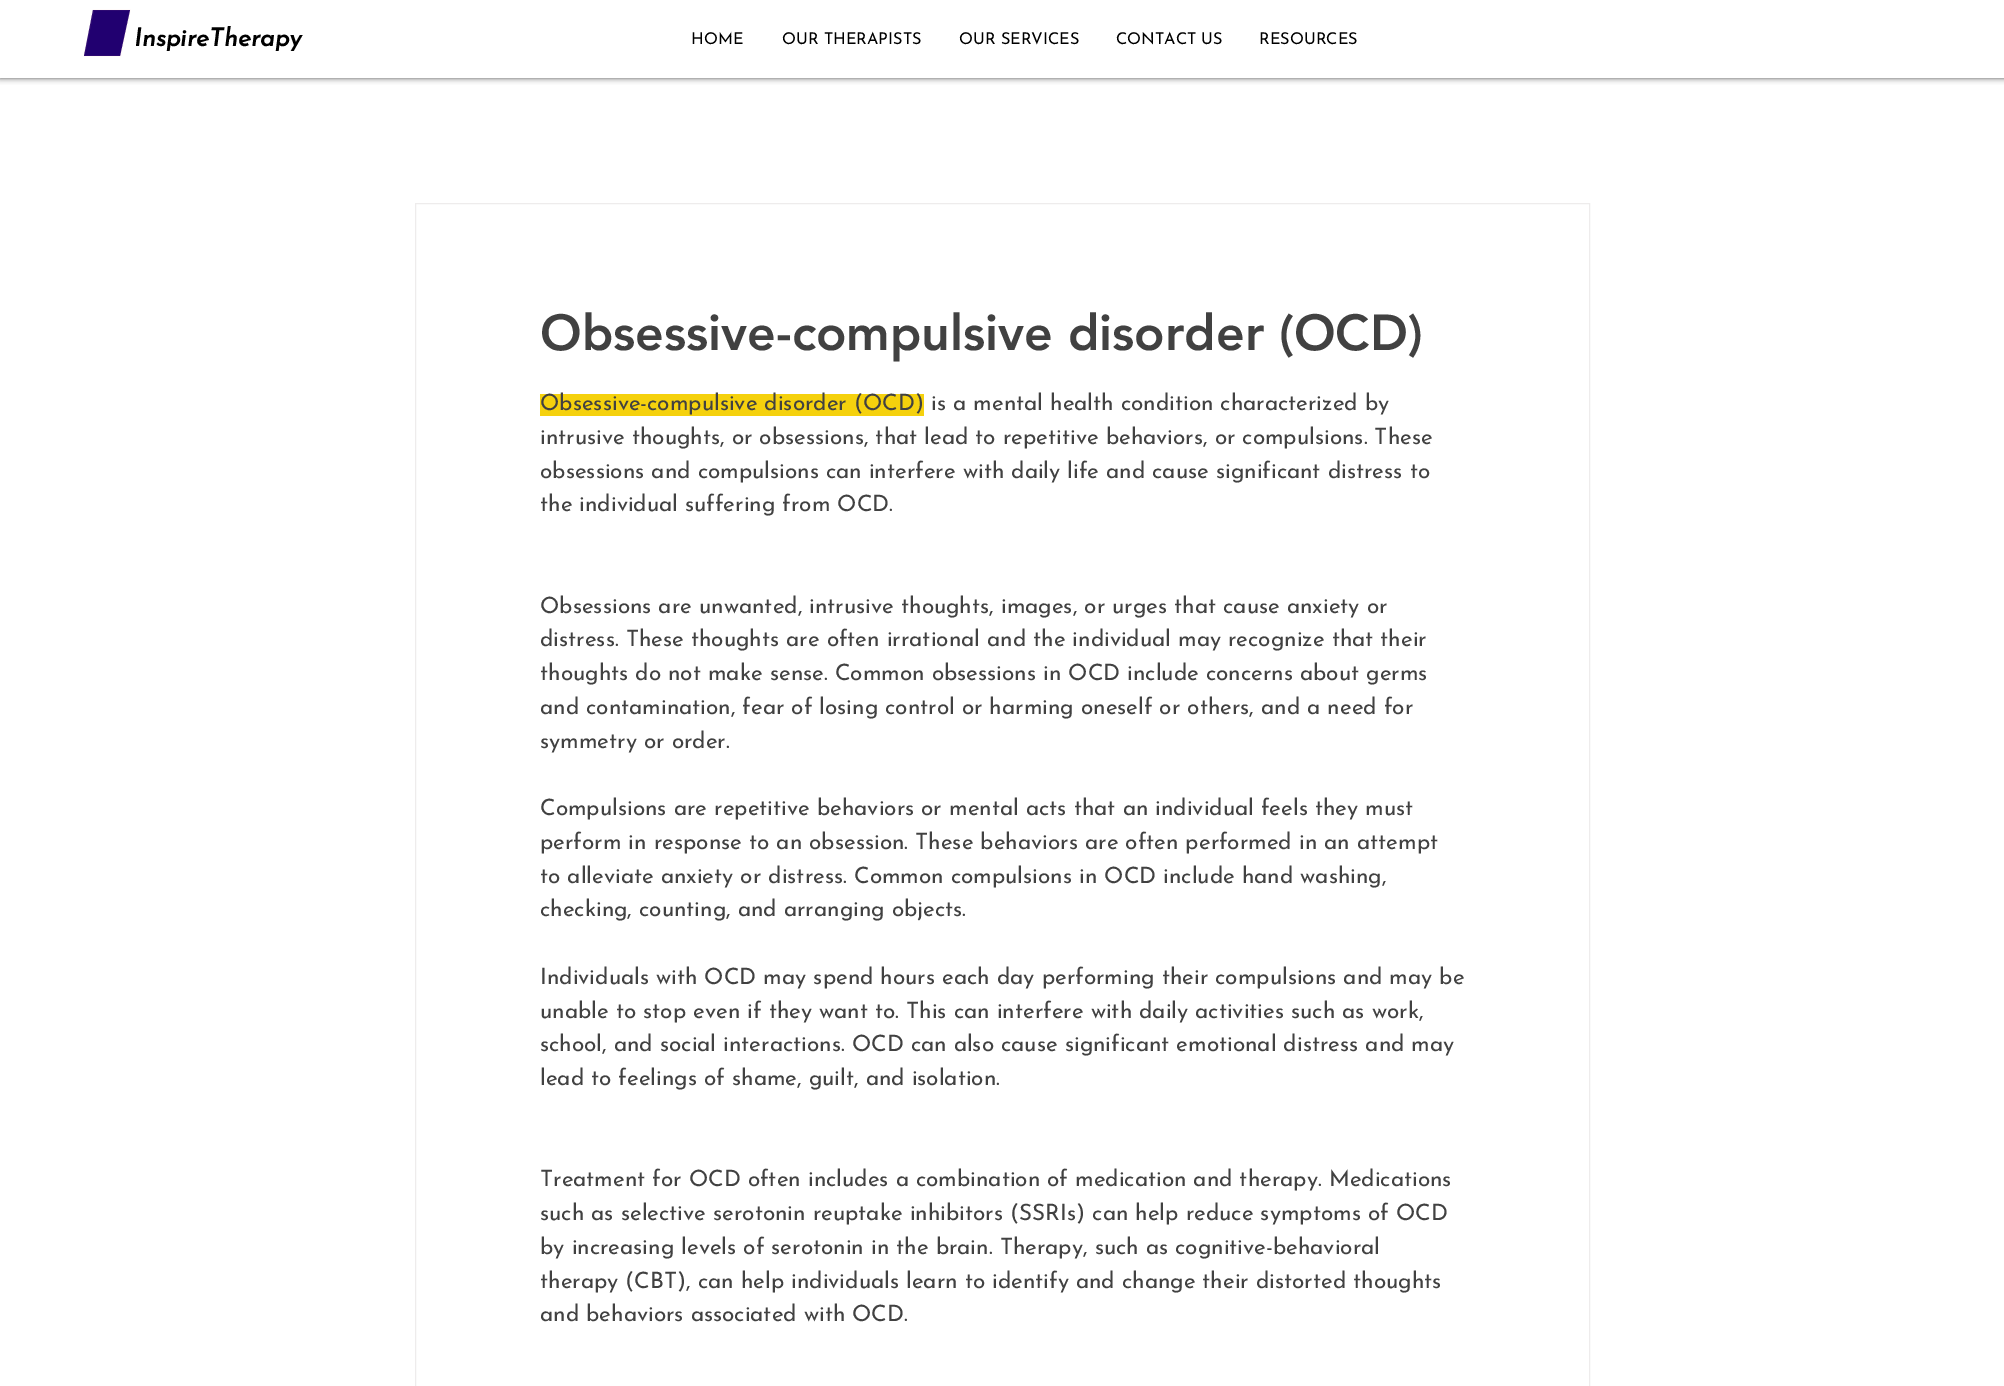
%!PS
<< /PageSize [2004 1386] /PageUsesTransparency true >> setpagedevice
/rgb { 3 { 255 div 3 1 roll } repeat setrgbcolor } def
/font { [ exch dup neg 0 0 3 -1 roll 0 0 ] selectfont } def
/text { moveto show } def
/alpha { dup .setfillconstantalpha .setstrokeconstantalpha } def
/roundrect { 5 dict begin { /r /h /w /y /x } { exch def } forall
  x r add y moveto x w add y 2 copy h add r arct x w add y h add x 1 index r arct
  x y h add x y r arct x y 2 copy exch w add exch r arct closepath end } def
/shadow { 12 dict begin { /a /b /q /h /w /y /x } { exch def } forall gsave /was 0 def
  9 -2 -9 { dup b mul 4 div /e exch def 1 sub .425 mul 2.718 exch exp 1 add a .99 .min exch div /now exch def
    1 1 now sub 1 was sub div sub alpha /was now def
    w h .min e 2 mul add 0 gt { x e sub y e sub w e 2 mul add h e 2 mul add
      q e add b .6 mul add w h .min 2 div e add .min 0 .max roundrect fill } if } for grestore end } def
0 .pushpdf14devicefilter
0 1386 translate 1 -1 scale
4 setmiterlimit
255 255 255 rgb
0 0 2004 1386 rectfill
gsave
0 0 moveto 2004 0 rlineto 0 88 rlineto -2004 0 rlineto closepath 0 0 moveto 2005 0 rlineto 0 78 rlineto -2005 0 rlineto closepath eoclip newpath
0 0 0 rgb
0 0 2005 78 0 3 0.7 shadow
grestore
33 0 112 rgb
120 56 moveto -36 0 rlineto 9 -46 rlineto 37 0 rlineto closepath fill
0.08 alpha
251 171 153 rgb
1.2 setlinewidth
120.5 56 moveto -36.5 0 rlineto 9.5 -46 rlineto 36.5 0 rlineto closepath stroke
0.6 alpha
255 255 255 rgb
0 77 2004 1 rectfill
1 alpha
238 236 236 rgb
1 setlinewidth
415.5 203.5 1174 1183 rectstroke
245 209 13 rgb
540 394 384 22 rectfill
/JosefinSans-BoldItalic 25 font
0 0 0 rgb
(InspireTherapy) 134 46 text
/JosefinSans-Regular 16.25 font
(HOME) 691 44 text
(OUR THERAPISTS) 782 44 text
(OUR SERVICES) 959 44 text
(CONTACT US) 1116 44 text
(RESOURCES) 1259 44 text
/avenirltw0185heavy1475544-Black 50 font
65 65 65 rgb
(Obsessive-compulsive disorder \(OCD\)) 540 350 text
/JosefinSans-Regular 22.5 font
(Obsessive-compulsive disorder \(OCD\) is a mental health condition characterized by) 540 410 text
(intrusive thoughts, or obsessions, that lead to repetitive behaviors, or compulsions. These) 540 444 text
(obsessions and compulsions can interfere with daily life and cause significant distress to) 540 478 text
(the individual suffering from OCD.) 540 511 text
(Obsessions are unwanted, intrusive thoughts, images, or urges that cause anxiety or) 540 613 text
(distress. These thoughts are often irrational and the individual may recognize that their) 540 646 text
(thoughts do not make sense. Common obsessions in OCD include concerns about germs) 540 680 text
(and contamination, fear of losing control or harming oneself or others, and a need for) 540 714 text
(symmetry or order.) 540 748 text
(Compulsions are repetitive behaviors or mental acts that an individual feels they must) 540 815 text
(perform in response to an obsession. These behaviors are often performed in an attempt) 540 849 text
(to alleviate anxiety or distress. Common compulsions in OCD include hand washing,) 540 883 text
(checking, counting, and arranging objects.) 540 916 text
(Individuals with OCD may spend hours each day performing their compulsions and may be) 540 984 text
(unable to stop even if they want to. This can interfere with daily activities such as work,) 540 1018 text
(school, and social interactions. OCD can also cause significant emotional distress and may) 540 1051 text
(lead to feelings of shame, guilt, and isolation.) 540 1085 text
(Treatment for OCD often includes a combination of medication and therapy. Medications) 540 1186 text
(such as selective serotonin reuptake inhibitors \(SSRIs\) can help reduce symptoms of OCD) 540 1220 text
(by increasing levels of serotonin in the brain. Therapy, such as cognitive-behavioral) 540 1254 text
(therapy \(CBT\), can help individuals learn to identify and change their distorted thoughts) 540 1288 text
(and behaviors associated with OCD.) 540 1321 text
.poppdf14devicefilter showpage
